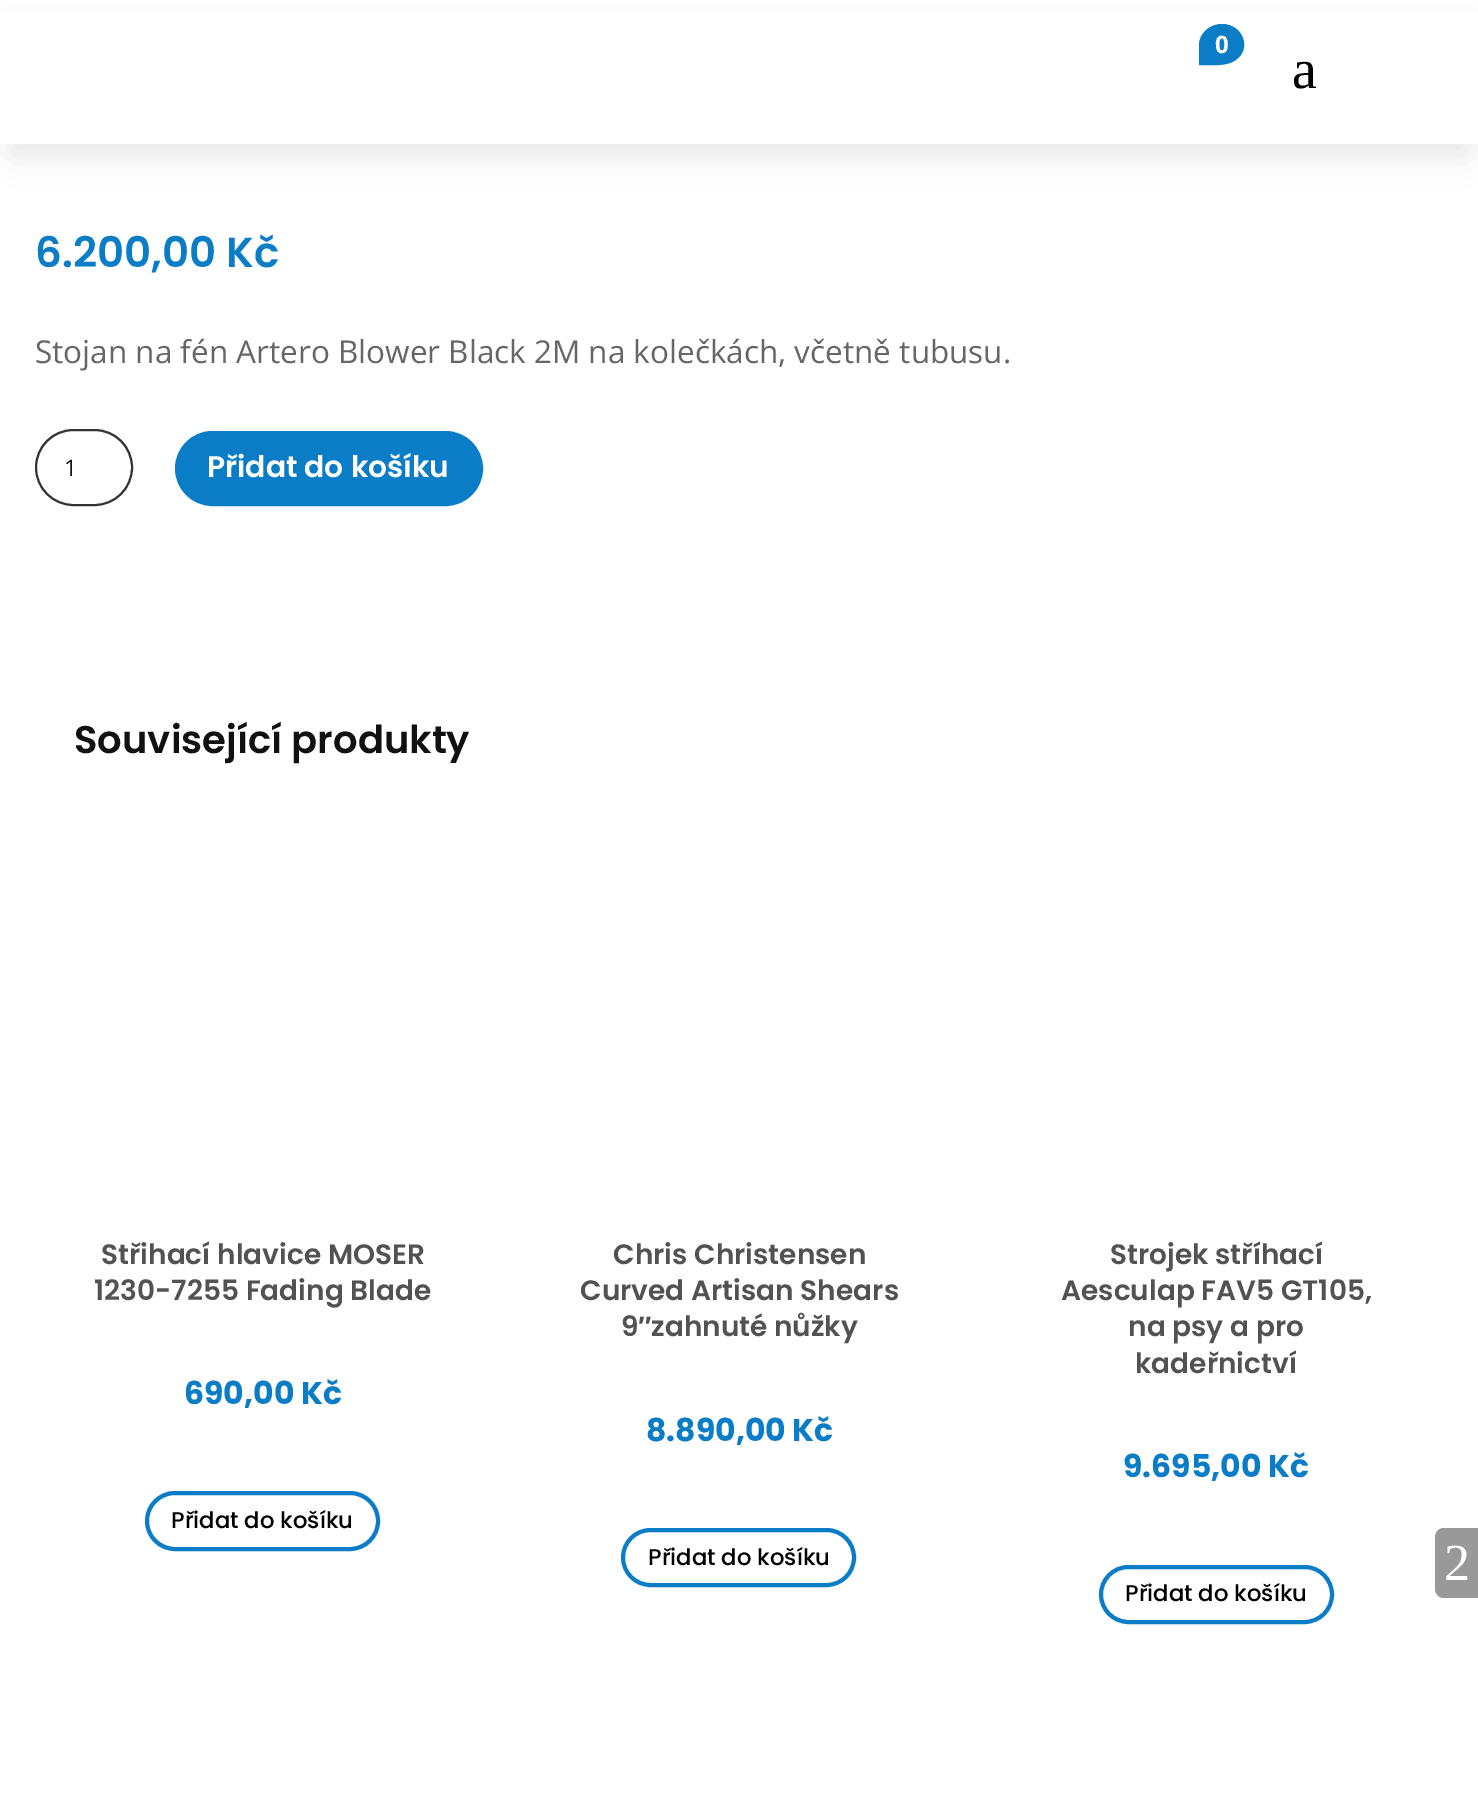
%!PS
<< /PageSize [1478 1816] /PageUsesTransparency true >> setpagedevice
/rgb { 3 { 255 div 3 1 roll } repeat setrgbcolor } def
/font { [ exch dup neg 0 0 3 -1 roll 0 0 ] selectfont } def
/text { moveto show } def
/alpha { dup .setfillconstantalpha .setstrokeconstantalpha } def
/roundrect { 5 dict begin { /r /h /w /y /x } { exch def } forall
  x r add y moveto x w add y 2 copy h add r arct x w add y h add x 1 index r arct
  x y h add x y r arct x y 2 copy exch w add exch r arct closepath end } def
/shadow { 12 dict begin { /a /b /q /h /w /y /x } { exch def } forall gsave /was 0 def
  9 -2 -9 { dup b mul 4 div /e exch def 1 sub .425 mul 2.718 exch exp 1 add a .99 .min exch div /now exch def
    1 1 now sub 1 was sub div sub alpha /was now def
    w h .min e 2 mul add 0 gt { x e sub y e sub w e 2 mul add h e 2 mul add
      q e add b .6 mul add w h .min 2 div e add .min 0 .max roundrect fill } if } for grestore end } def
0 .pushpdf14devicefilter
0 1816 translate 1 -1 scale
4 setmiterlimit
255 255 255 rgb
0 0 1478 1816 rectfill
0 0 0 rgb
11 32 1457 122 0 16 0.1 shadow
255 255 255 rgb
0 12 1478 132 rectfill
11 125 198 rgb
1222 24 moveto 23 0 32 30 8 39 rcurveto -8 3 -22 2 -31 2 rcurveto 0 -20 rlineto 0 -11 10 -21 23 -21 rcurveto closepath fill
51 51 51 rgb
2 setlinewidth
36 430 96 75 37.5 roundrect stroke
11 125 198 rgb
177 433 304 71 35.5 roundrect gsave fill grestore
4 setlinewidth
stroke
147 1493 231 56 28 roundrect stroke
623 1530 231 55 27.5 roundrect stroke
1101 1567 231 55 27.5 roundrect stroke
153 153 153 rgb
1444 1528 moveto 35 0 rlineto 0 70 rlineto -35 0 rlineto -5 0 -9 -4 -9 -9 rcurveto 0 -52 rlineto 0 -5 4 -9 9 -9 rcurveto closepath fill
/OpenSans-Bold 24 font
255 255 255 rgb
(0) 1215 53 text
/LiberationSerif-Regular 56 font
0 0 0 rgb
(a) 1292 88 text
/Poppins-SemiBold 42 font
11 125 198 rgb
(6.200,00 Kč) 35 267 text
/OpenSans-Regular 31.5 font
102 102 102 rgb
(Stojan na fén Artero Blower Black 2M na kolečkách, včetně tubusu.) 35 363 text
/OpenSans-Regular 22.75 font
17 17 17 rgb
(1) 64 476 text
/Poppins-SemiBold 29.75 font
255 255 255 rgb
(Přidat do košíku) 207 477 text
/Poppins-SemiBold 38.5 font
17 17 17 rgb
(Související produkty) 74 753 text
/Poppins-SemiBold 28 font
82 82 82 rgb
(Střihací hlavice MOSER) 101 1264 text
(1230-7255 Fading Blade) 94 1300 text
/Poppins-Bold 31.5 font
11 125 198 rgb
(690,00 Kč) 184 1404 text
/Poppins-Medium 22.75 font
0 0 0 rgb
(Přidat do košíku) 171 1528 text
/Poppins-SemiBold 28 font
82 82 82 rgb
(Chris Christensen) 613 1264 text
(Curved Artisan Shears) 580 1300 text
(9) 621 1336 text
/LiberationSans-Bold 28 font
(″) 638 1336 text
/Poppins-SemiBold 28 font
(zahnuté nůžky) 651 1336 text
/Poppins-Bold 31.5 font
11 125 198 rgb
(8.890,00 Kč) 646 1441 text
/Poppins-Medium 22.75 font
0 0 0 rgb
(Přidat do košíku) 648 1565 text
/Poppins-SemiBold 28 font
82 82 82 rgb
(Strojek stříhací) 1110 1264 text
(Aesculap FAV5 GT105,) 1061 1300 text
(na psy a pro) 1128 1336 text
(kadeřnictví) 1135 1373 text
/Poppins-Bold 31.5 font
11 125 198 rgb
(9.695,00 Kč) 1123 1477 text
/Poppins-Medium 22.75 font
0 0 0 rgb
(Přidat do košíku) 1125 1601 text
/LiberationSerif-Regular 52 font
255 255 255 rgb
(2) 1444 1580 text
.poppdf14devicefilter showpage
